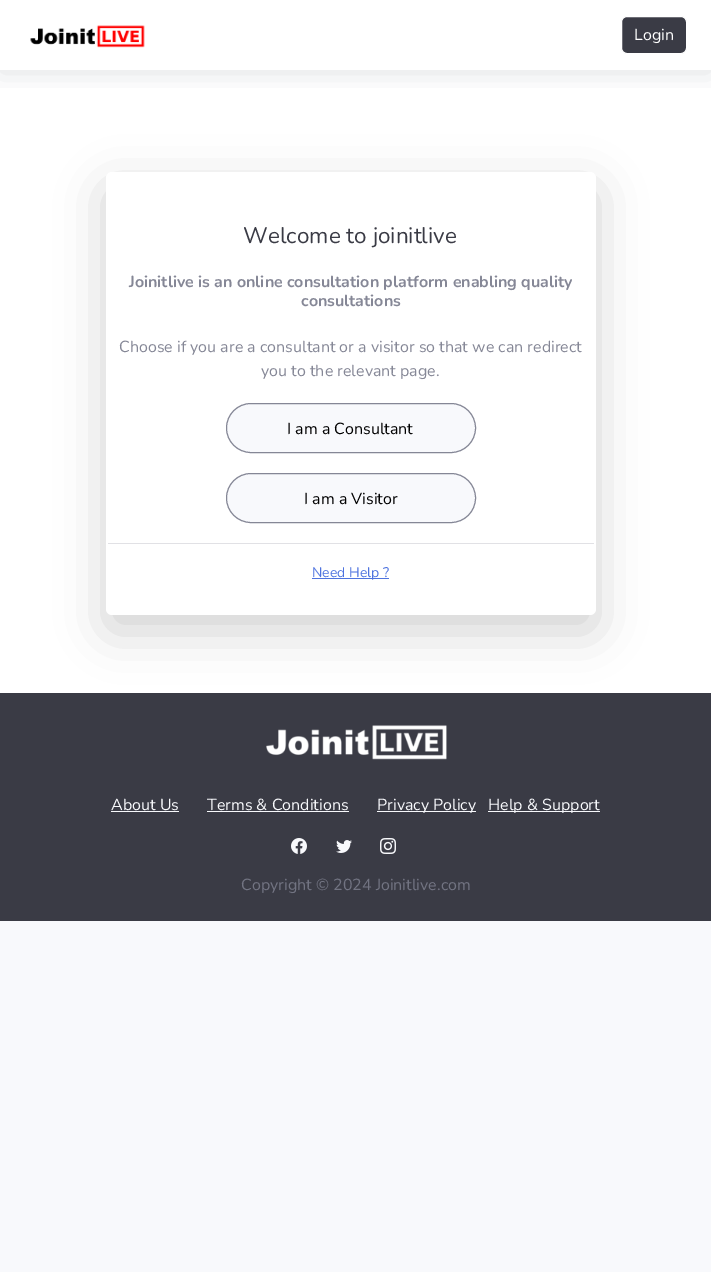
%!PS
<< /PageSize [711 1272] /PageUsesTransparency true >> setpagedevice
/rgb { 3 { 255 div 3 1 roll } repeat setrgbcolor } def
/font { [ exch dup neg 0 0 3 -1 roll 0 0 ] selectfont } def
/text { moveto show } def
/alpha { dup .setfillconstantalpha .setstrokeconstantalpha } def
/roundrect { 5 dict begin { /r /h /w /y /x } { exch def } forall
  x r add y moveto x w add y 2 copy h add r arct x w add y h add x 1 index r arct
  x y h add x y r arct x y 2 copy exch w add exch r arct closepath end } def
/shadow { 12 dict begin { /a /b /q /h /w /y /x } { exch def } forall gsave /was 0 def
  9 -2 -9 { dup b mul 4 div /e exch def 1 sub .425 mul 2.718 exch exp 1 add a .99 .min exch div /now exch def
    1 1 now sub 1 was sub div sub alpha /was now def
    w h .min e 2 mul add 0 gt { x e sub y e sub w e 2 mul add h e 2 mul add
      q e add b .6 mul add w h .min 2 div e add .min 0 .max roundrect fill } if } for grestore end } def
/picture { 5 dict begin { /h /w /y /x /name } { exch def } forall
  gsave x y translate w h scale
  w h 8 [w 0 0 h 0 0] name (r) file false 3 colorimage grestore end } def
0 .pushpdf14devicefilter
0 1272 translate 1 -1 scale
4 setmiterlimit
248 249 252 rgb
0 0 711 1272 rectfill
255 255 255 rgb
0 0 711 693 rectfill
gsave
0 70 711 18 rectclip
58 59 69 rgb
0 2 711 70 0 14 0.15 shadow
grestore
(img_01.rgb) 30 25 115 23 picture
58 59 69 rgb
621.5 16.5 65 37 5.5 roundrect gsave fill grestore
255 255 255 rgb
stroke
58 59 69 rgb
0 693 711 228 rectfill
0 0 0 rgb
106 188 490 443 6 24 0.18 shadow
255 255 255 rgb
106 172 490 443 6 roundrect fill
248 249 252 rgb
226.5 403.5 249 49 24.5 roundrect gsave fill grestore
133 135 150 rgb
stroke
248 249 252 rgb
226.5 473.5 249 49 24.5 roundrect gsave fill grestore
133 135 150 rgb
stroke
225 225 229 rgb
108 543 486 1 rectfill
78 115 223 rgb
312 578 77 1 rectfill
(img_02.rgb) 266 725 181 35 picture
248 249 252 rgb
111 811 68 1 rectfill
207 811 142 1 rectfill
377 811 99 1 rectfill
488 811 112 1 rectfill
(img_03.rgb) 291 838 16 16 picture
(img_04.rgb) 336 840 16 13 picture
(img_05.rgb) 380 838 16 16 picture
/Nunito-Regular 16 font
255 255 255 rgb
(Login) 634 40 text
/Nunito-Regular 22.5 font
58 59 69 rgb
(Welcome to joinitlive) 243 243 text
/Nunito-Bold 16 font
133 135 150 rgb
(Joinitlive is an online consultation platform enabling quality) 129 287 text
(consultations) 301 306 text
/Nunito-Regular 16 font
(Choose if you are a consultant or a visitor so that we can redirect) 119 352 text
(you to the relevant page.) 261 376 text
0 0 0 rgb
(I am a Consultant) 287 434 text
(I am a Visitor) 304 504 text
/Nunito-Regular 14 font
78 115 223 rgb
(Need Help ?) 312 577 text
/Nunito-Regular 16 font
248 249 252 rgb
(About Us) 111 810 text
(Terms & Conditions) 207 810 text
(Privacy Policy) 377 810 text
(Help & Support) 488 810 text
114 116 130 rgb
(Copyright © 2024 Joinitlive.com) 241 890 text
.poppdf14devicefilter showpage
